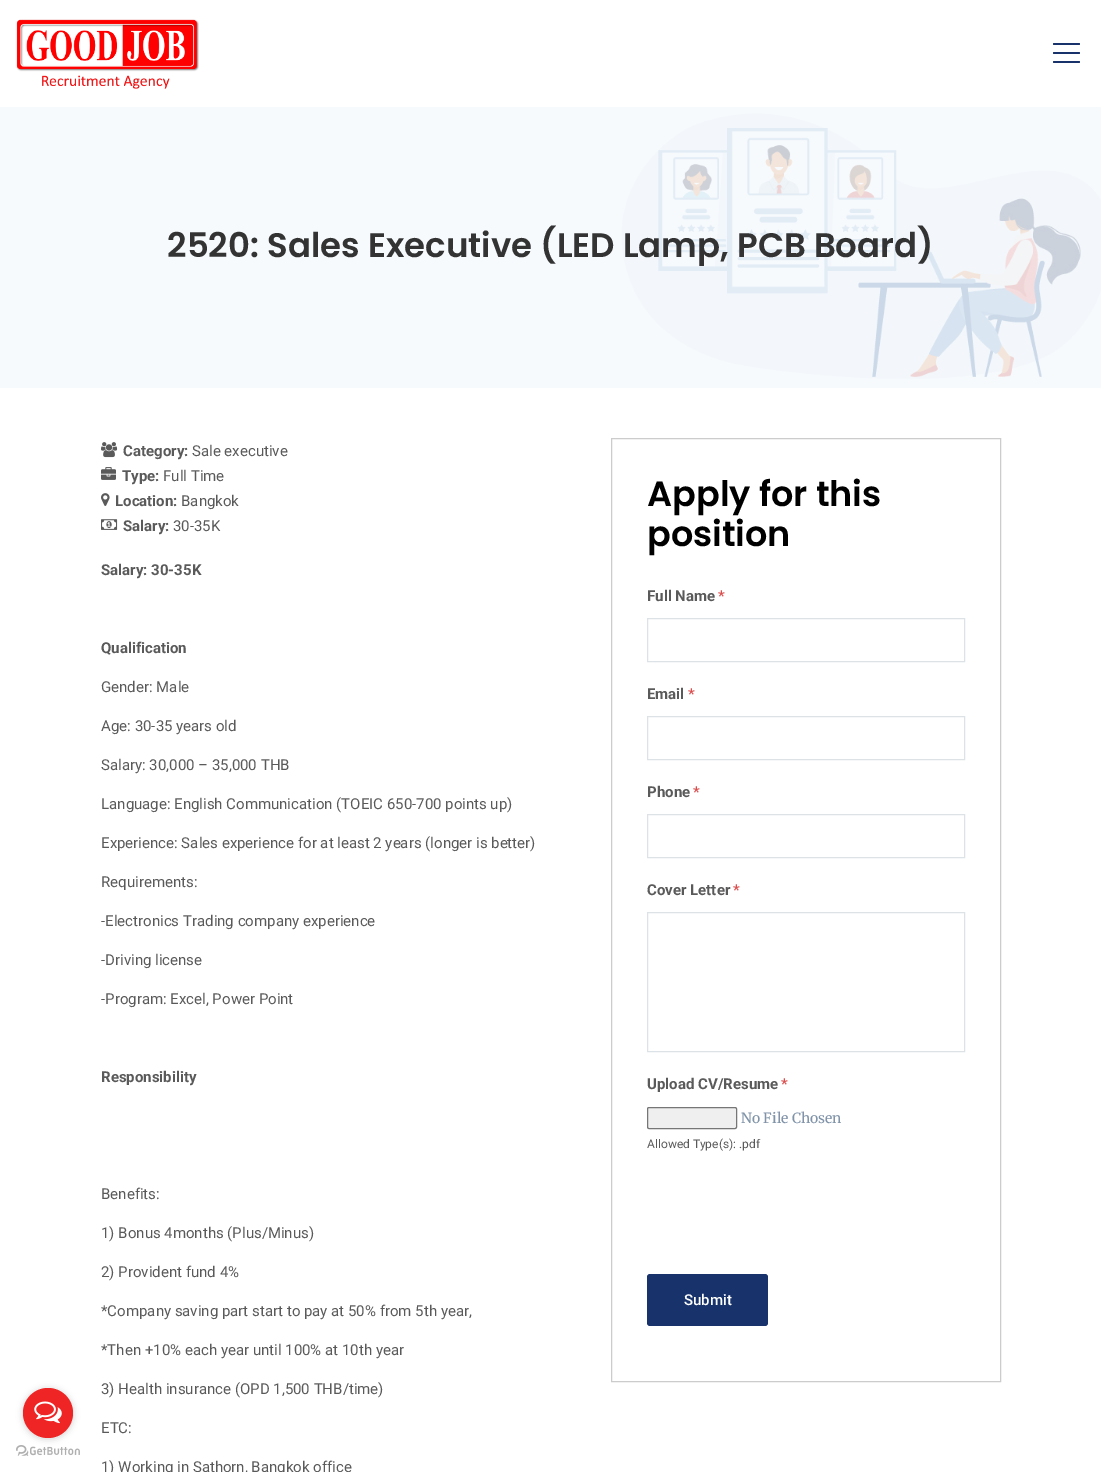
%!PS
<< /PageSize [1101 1472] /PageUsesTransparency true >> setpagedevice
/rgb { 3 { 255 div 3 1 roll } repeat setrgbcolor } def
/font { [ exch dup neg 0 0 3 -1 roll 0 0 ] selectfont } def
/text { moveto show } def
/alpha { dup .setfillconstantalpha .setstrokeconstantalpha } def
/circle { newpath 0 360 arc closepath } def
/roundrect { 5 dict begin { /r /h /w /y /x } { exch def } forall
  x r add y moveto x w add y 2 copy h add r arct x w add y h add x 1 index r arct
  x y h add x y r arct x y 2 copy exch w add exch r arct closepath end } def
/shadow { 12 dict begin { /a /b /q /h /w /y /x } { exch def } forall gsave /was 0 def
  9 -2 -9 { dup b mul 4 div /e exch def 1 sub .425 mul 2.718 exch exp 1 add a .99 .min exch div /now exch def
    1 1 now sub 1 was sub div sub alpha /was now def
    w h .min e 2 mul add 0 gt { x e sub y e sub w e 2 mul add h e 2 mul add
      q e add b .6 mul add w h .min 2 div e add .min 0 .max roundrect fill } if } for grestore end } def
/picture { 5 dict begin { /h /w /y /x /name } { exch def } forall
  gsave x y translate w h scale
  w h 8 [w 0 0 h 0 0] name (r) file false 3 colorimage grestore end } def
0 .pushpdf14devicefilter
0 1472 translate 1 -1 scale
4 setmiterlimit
255 255 255 rgb
0 0 1101 1472 rectfill
(img_02.rgb) 16 1445 64 11 picture
136 136 136 rgb
23 1389 50 50 25 3.5 0.4 shadow
238 37 36 rgb
48 1413 25 circle fill
(img_01.rgb) 34 1401 28 23 picture
(img_03.rgb) 16 19 183 70 picture
24 51 108 rgb
1053 52 27 2 1 roundrect fill
1053 43 27 2 1 roundrect fill
1053 61 27 2 1 roundrect fill
(img_04.rgb) 0 107 1101 281 picture
(img_05.rgb) 101 442 17 16 picture
(img_06.rgb) 101 467 15 13 picture
(img_07.rgb) 101 493 9 13 picture
(img_08.rgb) 101 519 17 11 picture
204 204 204 rgb
611.5 438.5 389 943 rectstroke
221 226 231 rgb
647.5 618.5 317 43 rectstroke
647.5 716.5 317 43 rectstroke
647.5 814.5 317 43 rectstroke
647.5 912.5 317 139 rectstroke
239 239 239 rgb
647.5 1107.5 89 21 1.5 roundrect gsave fill grestore
118 118 118 rgb
stroke
24 51 108 rgb
647 1274 121 52 3 roundrect fill
/Poppins-SemiBold 34 font
51 51 51 rgb
(2520: Sales Executive \(LED Lamp, PCB Board\)) 167 257 text
/Roboto-Bold 15 font
90 90 90 rgb
(Category:) 123 456 text
/Roboto-Regular 15 font
(Sale executive) 192 456 text
/Roboto-Bold 15 font
(Type:) 122 481 text
/Roboto-Regular 15 font
(Full Time) 163 481 text
/Roboto-Bold 15 font
(Location:) 115 506 text
/Roboto-Regular 15 font
(Bangkok) 181 506 text
/Roboto-Bold 15 font
(Salary:) 123 531 text
/Roboto-Regular 15 font
(30-35K) 173 531 text
/Roboto-Bold 15 font
(Salary: 30-35K) 101 575 text
(Qualification) 101 653 text
/Roboto-Regular 15 font
(Gender: Male) 101 692 text
(Age: 30-35 years old) 101 731 text
(Salary: 30,000 – 35,000 THB) 101 770 text
(Language: English Communication \(TOEIC 650-700 points up\)) 101 809 text
(Experience: Sales experience for at least 2 years \(longer is better\)) 101 848 text
(Requirements:) 101 887 text
(-Electronics Trading company experience) 101 926 text
(-Driving license) 101 965 text
(-Program: Excel, Power Point) 101 1004 text
/Roboto-Bold 15 font
(Responsibility) 101 1082 text
/Roboto-Regular 15 font
(Benefits:) 101 1199 text
(1\) Bonus 4months \(Plus/Minus\)) 101 1238 text
(2\) Provident fund 4%) 101 1277 text
(*Company saving part start to pay at 50% from 5th year,) 101 1316 text
(*Then +10% each year until 100% at 10th year) 101 1355 text
(3\) Health insurance \(OPD 1,500 THB/time\)) 101 1394 text
(ETC:) 101 1433 text
(1\) Working in Sathorn, Bangkok office) 101 1472 text
/Poppins-SemiBold 35 font
0 0 0 rgb
(Apply for this) 647 506 text
(position) 647 546 text
/Roboto-Bold 15 font
90 90 90 rgb
(Full Name) 647 601 text
/Roboto-Medium 15 font
219 76 76 rgb
(*) 718 601 text
/Roboto-Bold 15 font
90 90 90 rgb
(Email) 647 699 text
/Roboto-Medium 15 font
219 76 76 rgb
(*) 688 699 text
/Roboto-Bold 15 font
90 90 90 rgb
(Phone) 647 797 text
/Roboto-Medium 15 font
219 76 76 rgb
(*) 693 797 text
/Roboto-Bold 15 font
90 90 90 rgb
(Cover Letter) 647 895 text
/Roboto-Medium 15 font
219 76 76 rgb
(*) 733 895 text
/Roboto-Bold 15 font
90 90 90 rgb
(Upload CV/Resume) 647 1089 text
/Roboto-Medium 15 font
219 76 76 rgb
(*) 781 1089 text
/Merriweather-Medium 14 font
128 147 168 rgb
(No File Chosen) 741 1123 text
/Roboto-Regular 12 font
90 90 90 rgb
(Allowed Type\(s\): .pdf) 647 1148 text
/Roboto-Medium 15 font
255 255 255 rgb
(Submit) 684 1305 text
.poppdf14devicefilter showpage
